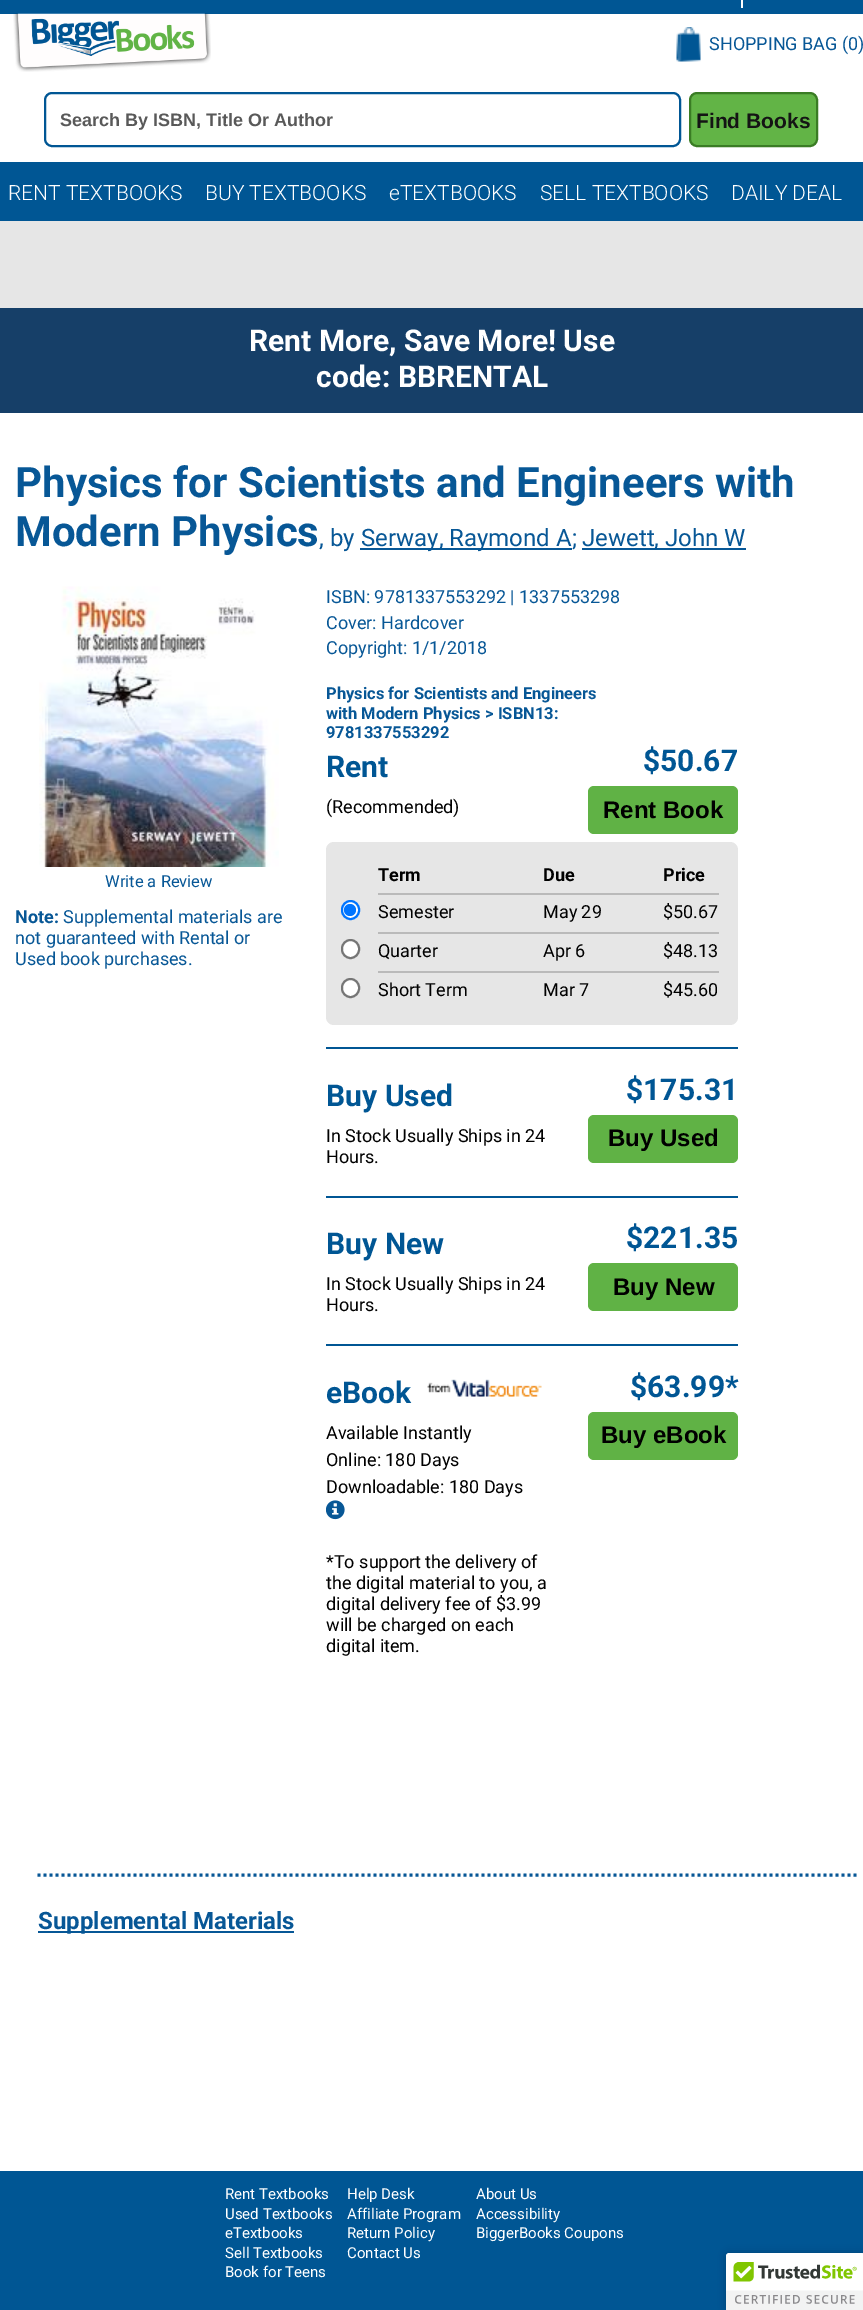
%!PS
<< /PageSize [863 2310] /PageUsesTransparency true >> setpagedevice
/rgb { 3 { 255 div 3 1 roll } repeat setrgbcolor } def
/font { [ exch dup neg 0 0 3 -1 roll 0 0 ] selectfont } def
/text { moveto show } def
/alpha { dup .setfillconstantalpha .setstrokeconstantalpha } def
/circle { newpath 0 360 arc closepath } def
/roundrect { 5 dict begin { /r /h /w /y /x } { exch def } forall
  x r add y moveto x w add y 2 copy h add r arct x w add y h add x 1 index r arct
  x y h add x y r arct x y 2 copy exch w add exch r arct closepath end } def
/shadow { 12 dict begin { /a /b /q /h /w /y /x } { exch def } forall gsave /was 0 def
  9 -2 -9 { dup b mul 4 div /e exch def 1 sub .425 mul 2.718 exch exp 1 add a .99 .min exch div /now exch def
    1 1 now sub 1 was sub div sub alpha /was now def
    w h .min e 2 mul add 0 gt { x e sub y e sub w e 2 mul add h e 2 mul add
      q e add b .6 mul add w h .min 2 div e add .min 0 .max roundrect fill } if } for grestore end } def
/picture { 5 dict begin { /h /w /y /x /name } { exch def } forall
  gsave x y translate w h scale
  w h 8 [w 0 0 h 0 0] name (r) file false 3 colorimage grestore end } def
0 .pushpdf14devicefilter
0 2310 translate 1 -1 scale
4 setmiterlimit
255 255 255 rgb
0 0 863 2310 rectfill
0 86 148 rgb
0 0 863 14 rectfill
255 255 255 rgb
741 0 2 8 rectfill
(img_01.rgb) 13 13 198 59 picture
(img_02.rgb) 676 27 25 35 picture
0 86 148 rgb
2 setlinewidth
45 93 635 53 7 roundrect stroke
98 180 70 rgb
690 93 127 53 7 roundrect gsave fill grestore
58 124 36 rgb
stroke
0 86 148 rgb
0 162 863 59 rectfill
230 230 230 rgb
0 221 863 87 rectfill
22 63 104 rgb
0 308 863 105 rectfill
7 87 150 rgb
360 548 212 2 rectfill
582 548 164 2 rectfill
(img_03.rgb) 39 586 240 281 picture
96 178 69 rgb
588 786 150 48 6 roundrect fill
230 230 230 rgb
326 842 412 183 8 roundrect fill
255 255 255 rgb
342 901 17 18 8.5 roundrect gsave fill grestore
0 117 255 rgb
stroke
350 910 6 circle fill
186 186 186 rgb
378 893 341 2 rectfill
255 255 255 rgb
342 940 17 18 8.5 roundrect gsave fill grestore
118 118 118 rgb
stroke
186 186 186 rgb
378 932 341 2 rectfill
255 255 255 rgb
342 979 17 18 8.5 roundrect gsave fill grestore
118 118 118 rgb
stroke
186 186 186 rgb
378 971 341 2 rectfill
0 86 148 rgb
326 1047 412 2 rectfill
96 178 69 rgb
588 1115 150 48 6 roundrect fill
0 86 148 rgb
326 1196 412 2 rectfill
96 178 69 rgb
588 1263 150 48 6 roundrect fill
0 86 148 rgb
326 1344 412 2 rectfill
(img_04.rgb) 427 1379 115 18 picture
(img_05.rgb) 326 1500 19 20 picture
96 178 69 rgb
588 1412 150 48 6 roundrect fill
8 87 150 rgb
3 setlinewidth
[3 3] 0 setdash
37.5 1875 moveto 819 0 rlineto stroke
7 87 150 rgb
38 1931 256 2 rectfill
0 86 148 rgb
0 2171 863 139 rectfill
0 0 0 rgb
726 2253 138 57 3 4 0.2 shadow
255 255 255 rgb
729 2253 moveto 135 0 rlineto 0 57 rlineto -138 0 rlineto 0 -54 rlineto 0 -1.5 1.5 -3 3 -3 rcurveto closepath fill
(img_06.rgb) 726 2253 137 57 picture
/Roboto-Regular 18 font
7 87 150 rgb
(SHOPPING BAG \(0\)) 709 50 text
/LiberationSans-Bold 18 font
89 89 89 rgb
(Search By ISBN, Title Or Author) 60 126 text
/LiberationSans-Bold 21 font
20 20 20 rgb
(Find Books) 696 128 text
/Roboto-Light 21 font
255 255 255 rgb
(RENT TEXTBOOKS) 8 200 text
(BUY TEXTBOOKS) 205 200 text
(eTEXTBOOKS) 389 200 text
(SELL TEXTBOOKS) 540 200 text
(DAILY DEAL) 731 200 text
/Roboto-Bold 30 font
(Rent More, Save More! Use) 249 351 text
(code: BBRENTAL) 316 387 text
/Roboto-Bold 42 font
7 87 150 rgb
(Physics for Scientists and Engineers with) 15 497 text
(Modern Physics) 15 546 text
/Roboto-Regular 24 font
(, by) 319 546 text
(Serway, Raymond A;) 361 546 text
(Jewett, John W) 582 546 text
/Roboto-Regular 16.5 font
(Write a Review) 105 887 text
/Roboto-Bold 18 font
(Note:) 15 923 text
/Roboto-Regular 18 font
(Supplemental materials are) 63 923 text
(not guaranteed with Rental or) 15 944 text
(Used book purchases.) 15 965 text
(ISBN: 9781337553292 | 1337553298) 326 603 text
(Cover: Hardcover) 326 629 text
(Copyright: 1/1/2018) 326 654 text
/Roboto-Bold 16.5 font
(Physics for Scientists and Engineers) 326 699 text
(with Modern Physics > ISBN13:) 326 719 text
(9781337553292) 326 738 text
/Roboto-Bold 30 font
0 86 148 rgb
(Rent) 326 777 text
/Roboto-Regular 18 font
0 0 0 rgb
(\(Recommended\)) 326 813 text
/Roboto-Bold 30 font
0 86 148 rgb
($50.67) 643 771 text
/LiberationSans-Bold 24 font
0 0 0 rgb
(Rent Book) 603 818 text
/Roboto-Bold 18 font
(Term) 378 881 text
(Due) 543 881 text
(Price) 663 881 text
/Roboto-Regular 18 font
(Semester) 378 918 text
(May 29) 543 918 text
($50.67) 663 918 text
(Quarter) 378 957 text
(Apr 6) 543 957 text
($48.13) 663 957 text
(Short Term) 378 996 text
(Mar 7) 543 996 text
($45.60) 663 996 text
/Roboto-Bold 30 font
0 86 148 rgb
(Buy Used) 326 1106 text
/Roboto-Regular 18 font
0 0 0 rgb
(In Stock Usually Ships in 24) 326 1142 text
(Hours.) 326 1163 text
/Roboto-Bold 30 font
0 86 148 rgb
($175.31) 626 1100 text
/LiberationSans-Bold 24 font
0 0 0 rgb
(Buy Used) 608 1146 text
/Roboto-Bold 30 font
0 86 148 rgb
(Buy New) 326 1254 text
/Roboto-Regular 18 font
0 0 0 rgb
(In Stock Usually Ships in 24) 326 1290 text
(Hours.) 326 1311 text
/Roboto-Bold 30 font
0 86 148 rgb
($221.35) 626 1248 text
/LiberationSans-Bold 24 font
0 0 0 rgb
(Buy New) 613 1295 text
/Roboto-Bold 30 font
0 86 148 rgb
(eBook) 326 1403 text
/Roboto-Regular 18 font
0 0 0 rgb
(Available Instantly) 326 1439 text
(Online: 180 Days) 326 1466 text
(Downloadable: 180 Days) 326 1493 text
(*To support the delivery of) 326 1568 text
(the digital material to you, a) 326 1589 text
(digital delivery fee of $3.99) 326 1610 text
(will be charged on each) 326 1631 text
(digital item.) 326 1652 text
/Roboto-Bold 30 font
0 86 148 rgb
($63.99*) 630 1397 text
/LiberationSans-Bold 24 font
0 0 0 rgb
(Buy eBook) 601 1443 text
/Roboto-Bold 24 font
7 87 150 rgb
(Supplemental Materials) 38 1929 text
/Roboto-Regular 15 font
255 255 255 rgb
(Rent Textbooks) 225 2199 text
(Used Textbooks) 225 2219 text
(eTextbooks) 225 2238 text
(Sell Textbooks) 225 2258 text
(Book for Teens) 225 2277 text
(Help Desk) 347 2199 text
(Affiliate Program) 347 2219 text
(Return Policy) 347 2238 text
(Contact Us) 347 2258 text
(About Us) 476 2199 text
(Accessibility) 476 2219 text
(BiggerBooks Coupons) 476 2238 text
.poppdf14devicefilter showpage
